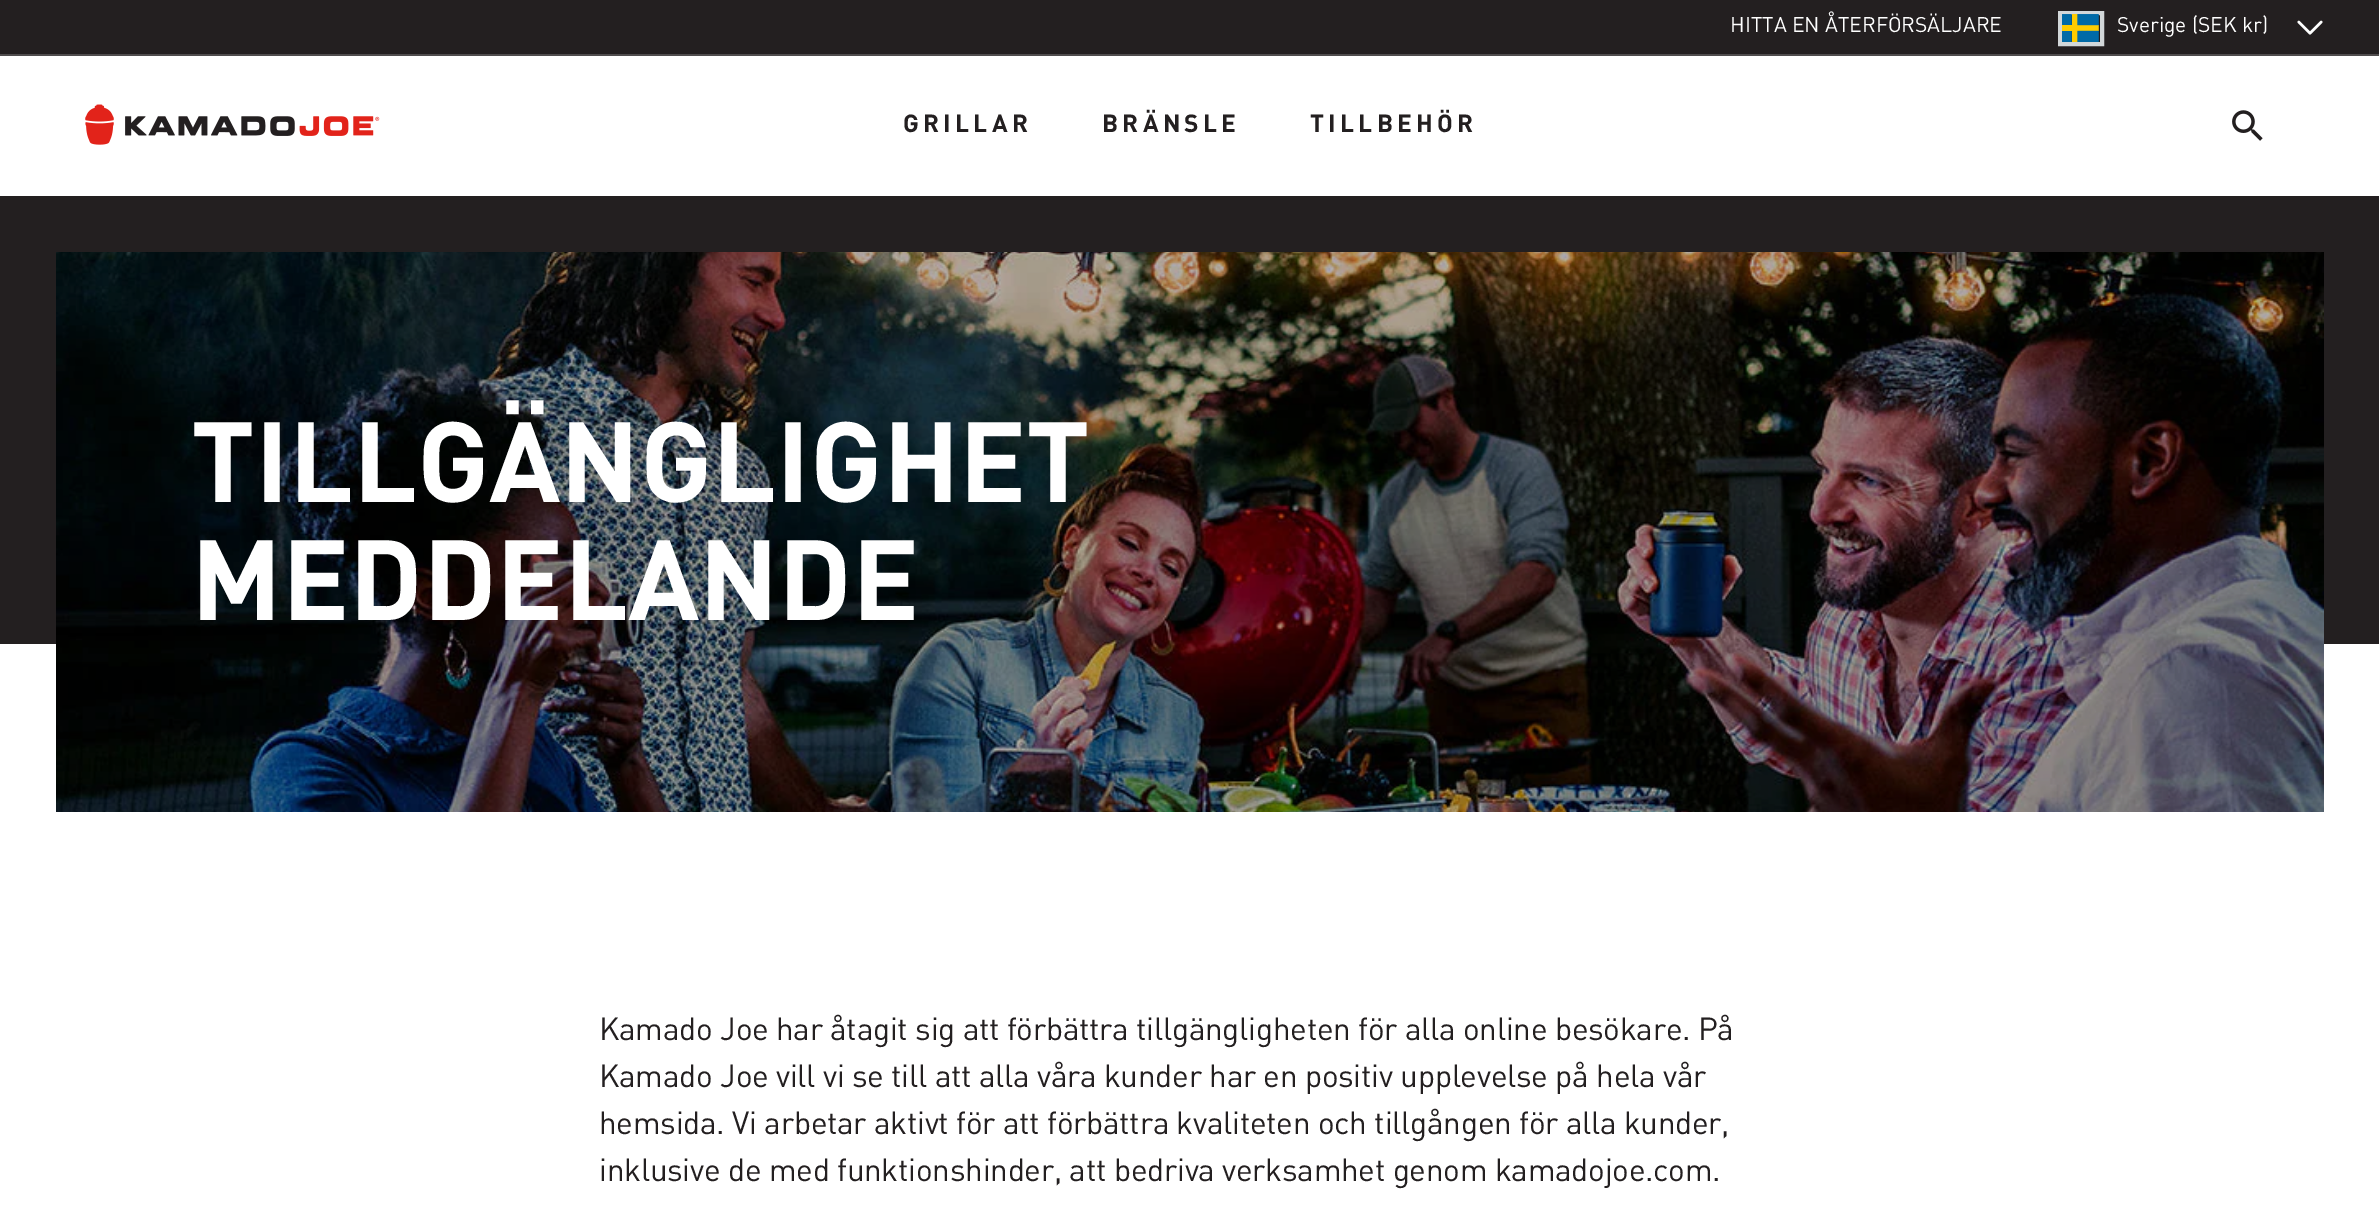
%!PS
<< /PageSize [2379 1225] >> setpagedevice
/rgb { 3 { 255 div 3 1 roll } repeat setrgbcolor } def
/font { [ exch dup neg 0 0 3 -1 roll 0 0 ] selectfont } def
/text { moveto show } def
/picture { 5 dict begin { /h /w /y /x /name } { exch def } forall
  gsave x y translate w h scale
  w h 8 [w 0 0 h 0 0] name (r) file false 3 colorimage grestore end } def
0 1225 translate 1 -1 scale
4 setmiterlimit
255 255 255 rgb
0 0 2379 1225 rectfill
35 31 32 rgb
0 0 2379 54 rectfill
79 76 77 rgb
0 54 2379 2 rectfill
210 215 217 rgb
4 setlinewidth
2060 13 42 31 rectstroke
(img_01.rgb) 2062 14 37 28 picture
(img_02.rgb) 2297 20 26 15 picture
(img_03.rgb) 85 104 295 41 picture
(img_04.rgb) 2232 110 31 31 picture
35 31 32 rgb
0 196 2379 448 rectfill
(img_05.rgb) 56 252 2268 560 picture
/din-Regular 21 font
255 255 255 rgb
(HITTA EN ÅTERFÖRSÄLJARE) 1730 32 text
(Sverige \(SEK kr\)) 2117 32 text
/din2-Regular 24.5 font
35 31 32 rgb
903 132 moveto 4.25 0 (GRILLAR) ashow
1102 132 moveto 4.25 0 (BRÄNSLE) ashow
1310 132 moveto 4.25 0 (TILLBEHÖR) ashow
/din2-Regular 112 font
255 255 255 rgb
191 502 moveto -0.28 0 (TILLGÄNGLIGHET) ashow
191 620 moveto -0.28 0 (MEDDELANDE) ashow
/din-Regular 31.5 font
35 31 32 rgb
599 1040 moveto -0.28 0 (Kamado Joe har åtagit sig att förbättra tillgängligheten för alla online besökare. På) ashow
599 1087 moveto -0.28 0 (Kamado Joe vill vi se till att alla våra kunder har en positiv upplevelse på hela vår) ashow
599 1134 moveto -0.28 0 (hemsida. Vi arbetar aktivt för att förbättra kvaliteten och tillgången för alla kunder,) ashow
599 1181 moveto -0.28 0 (inklusive de med funktionshinder, att bedriva verksamhet genom kamadojoe.com.) ashow
showpage
